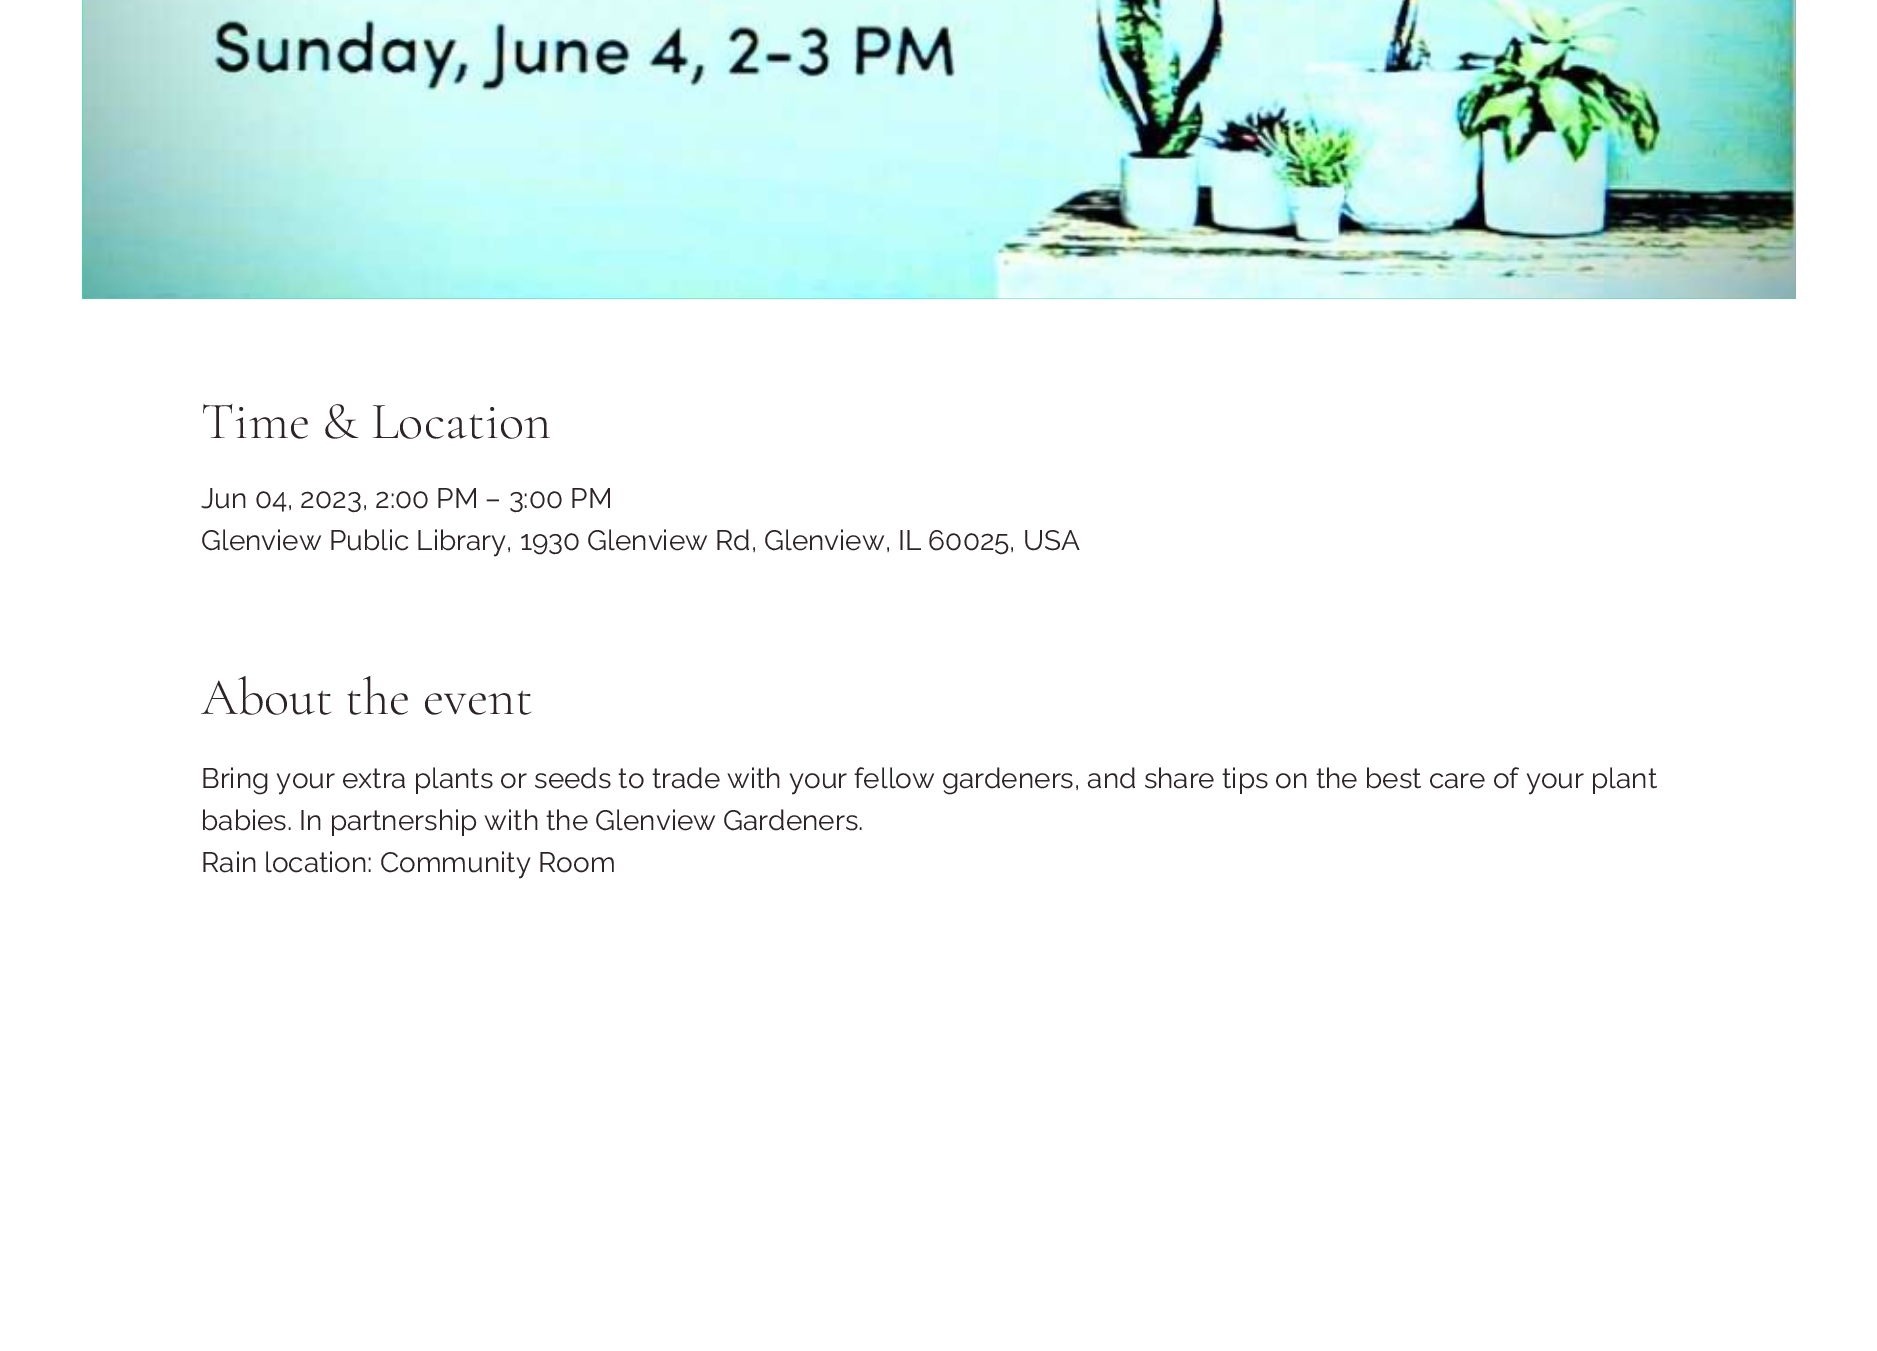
%!PS
<< /PageSize [1877 1351] >> setpagedevice
/rgb { 3 { 255 div 3 1 roll } repeat setrgbcolor } def
/font { [ exch dup neg 0 0 3 -1 roll 0 0 ] selectfont } def
/text { moveto show } def
/picture { 5 dict begin { /h /w /y /x /name } { exch def } forall
  gsave x y translate w h scale
  w h 8 [w 0 0 h 0 0] name (r) file false 3 colorimage grestore end } def
0 1351 translate 1 -1 scale
4 setmiterlimit
255 255 255 rgb
0 0 1877 1351 rectfill
54 221 163 rgb
82 0 1714 299 rectfill
(img_01.rgb) 82 0 1714 299 picture
/CormorantGaramond-Light 52.5 font
45 36 39 rgb
(Time & Location) 201 438 text
/Raleway-Regular 28 font
(Jun 04, 2023, 2:00 PM – 3:00 PM) 201 508 text
(Glenview Public Library, 1930 Glenview Rd, Glenview, IL 60025, USA) 201 550 text
/CormorantGaramond-Light 52.5 font
(About the event) 201 714 text
/Raleway-Regular 28 font
(Bring your extra plants or seeds to trade with your fellow gardeners, and share tips on the best care of your plant) 201 788 text
(babies. In partnership with the Glenview Gardeners.) 201 830 text
(Rain location: Community Room) 201 872 text
showpage
